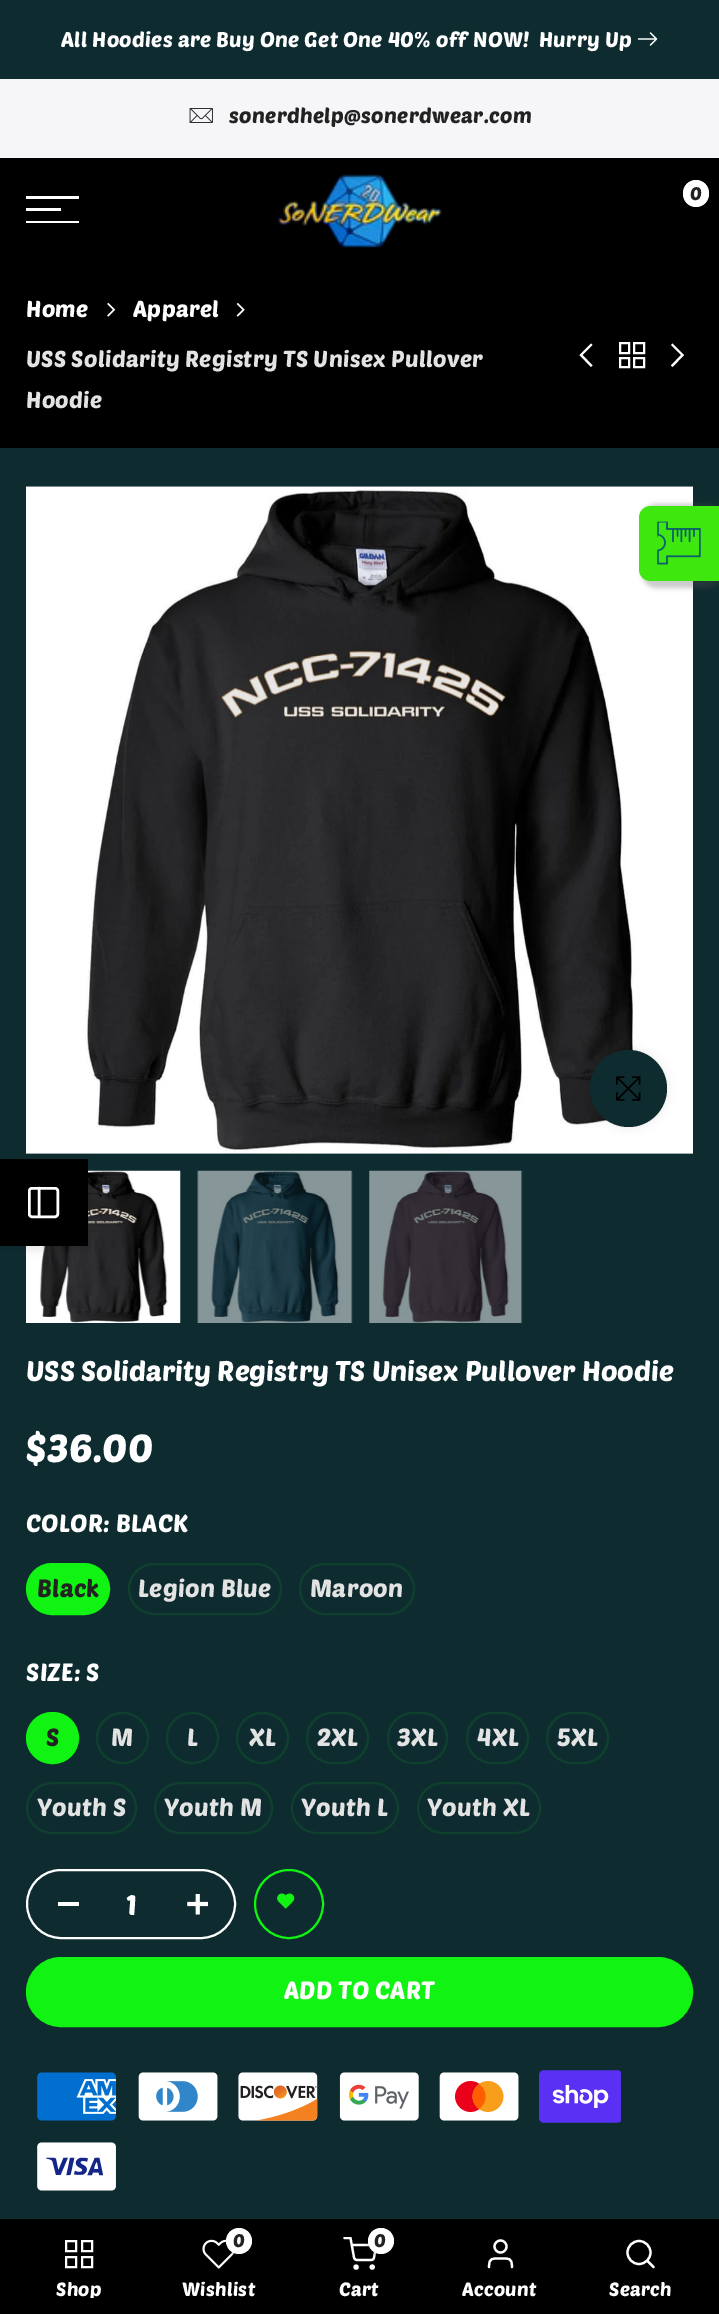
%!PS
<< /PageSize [719 2314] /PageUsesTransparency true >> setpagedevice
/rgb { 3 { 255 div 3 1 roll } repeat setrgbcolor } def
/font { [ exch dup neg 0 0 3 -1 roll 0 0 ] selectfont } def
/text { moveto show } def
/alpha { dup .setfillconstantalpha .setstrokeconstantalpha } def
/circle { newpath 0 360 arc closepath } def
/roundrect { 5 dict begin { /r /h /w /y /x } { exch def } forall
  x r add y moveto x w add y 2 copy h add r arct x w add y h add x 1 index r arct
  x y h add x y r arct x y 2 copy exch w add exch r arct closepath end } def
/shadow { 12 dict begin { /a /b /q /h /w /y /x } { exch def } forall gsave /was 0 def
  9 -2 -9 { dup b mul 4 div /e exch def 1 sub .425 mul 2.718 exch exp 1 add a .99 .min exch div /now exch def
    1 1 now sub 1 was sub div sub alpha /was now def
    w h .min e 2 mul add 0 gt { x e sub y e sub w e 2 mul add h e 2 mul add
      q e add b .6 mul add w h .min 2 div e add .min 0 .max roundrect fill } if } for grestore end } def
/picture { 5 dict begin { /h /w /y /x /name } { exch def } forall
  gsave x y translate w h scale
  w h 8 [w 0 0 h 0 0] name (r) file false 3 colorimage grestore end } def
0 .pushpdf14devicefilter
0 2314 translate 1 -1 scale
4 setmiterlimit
14 44 48 rgb
0 0 719 2314 rectfill
(img_01.rgb) 637 32 21 14 picture
246 246 248 rgb
0 79 719 79 rectfill
(img_02.rgb) 189 108 24 15 picture
0 0 0 rgb
0 158 719 290 rectfill
(img_03.rgb) 277 174 165 74 picture
255 255 255 rgb
683 180 26 27 13 roundrect fill
26 196 53 3 rectfill
26 208 35 3 rectfill
26 221 53 2 rectfill
(img_04.rgb) 107 303 9 14 picture
(img_05.rgb) 236 303 9 14 picture
591 343.5 moveto -11.5 11.5 rlineto 11.5 12 rlineto 1.5 -1.5 rlineto -10 -10.5 rlineto 10 -10 rlineto closepath fill
2 setlinewidth
620 343 9 10 rectstroke
634 343 10 10 rectstroke
634 358 10 9 rectstroke
620 358 9 9 rectstroke
672.5 343.5 moveto -1.5 1.5 rlineto 10 10 rlineto -10 10.5 rlineto 1.5 1.5 rlineto 11.5 -12 rlineto -0.5 -0.5 rlineto closepath fill
(img_06.rgb) 26 486 667 668 picture
(img_08.rgb) 26 1170 155 153 picture
0 0 0 rgb
0 1162 88 88 0 5 0.1 shadow
0 1159 88 87 rectfill
255 255 255 rgb
2.5 setlinewidth
29.25 1188.25 28.5 28.5 2.75 roundrect stroke
2.4 setlinewidth
1 setlinecap
1 setlinejoin
39 1188 moveto 0 28.5 rlineto stroke
0 0 0 rgb
590 1050 77 77 38.5 4.5 0.09 shadow
14 44 48 rgb
628.5 1088.5 38.5 circle fill
(img_07.rgb) 616 1076 25 25 picture
(img_09.rgb) 197 1170 156 153 picture
(img_10.rgb) 369 1170 154 153 picture
17 244 19 rgb
27 1564 82 50 25 roundrect gsave fill grestore
2 setlinewidth
0 setlinecap
0 setlinejoin
stroke
14 64 45 rgb
129 1564 152 50 25 roundrect stroke
300 1564 114 50 25 roundrect stroke
17 244 19 rgb
27 1713 51 50 25 roundrect gsave fill grestore
stroke
14 64 45 rgb
97 1713 51 50 25 roundrect stroke
167 1713 51 50 25 roundrect stroke
237 1713 51 50 25 roundrect stroke
307 1713 61 50 25 roundrect stroke
388 1713 59 50 25 roundrect stroke
467 1713 61 50 25 roundrect stroke
547 1713 61 50 25 roundrect stroke
27 1783 109 50 25 roundrect stroke
155 1783 117 50 25 roundrect stroke
292 1783 106 50 25 roundrect stroke
418 1783 122 50 25 roundrect stroke
255 255 255 rgb
27 1870 208 68 34 roundrect stroke
58 1902 21 4 rectfill
(img_11.rgb) 187 1894 21 21 picture
17 244 19 rgb
289 1904 34 circle stroke
(img_12.rgb) 277 1893 18 16 picture
28 1959 663 66 33 roundrect gsave fill grestore
4 setlinewidth
stroke
(img_13.rgb) 37 2072 79 49 picture
(img_14.rgb) 138 2072 80 49 picture
(img_15.rgb) 238 2072 80 49 picture
(img_16.rgb) 339 2072 80 49 picture
(img_17.rgb) 439 2072 80 49 picture
(img_18.rgb) 539 2070 82 53 picture
(img_19.rgb) 37 2142 79 49 picture
80 80 80 rgb
642 504 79 84 14 2.5 0.3 shadow
62 232 15 rgb
639 569 moveto 0 -51 rlineto 0 -7 5 -12 12 -12 rcurveto 68 0 rlineto 0 75 rlineto -68 0 rlineto -7 0 -12 -5 -12 -12 rcurveto closepath fill
(img_20.rgb) 657 521 44 44 picture
0 0 0 rgb
0 2219 719 95 rectfill
255 255 255 rgb
2 setlinewidth
66 2241 10 10 rectstroke
82 2241 10 10 rectstroke
82 2257 10 10 rectstroke
66 2257 10 10 rectstroke
(img_21.rgb) 202 2239 32 30 picture
0 0 0 rgb
228 2230 26 26 13 2.5 0.3 shadow
255 255 255 rgb
239 2241 13 circle fill
2.2 setlinewidth
356.1 2267.1 1.5 circle stroke
372.2 2267.1 1.5 circle stroke
gsave
343 2237 35 35 rectclip
1 setlinecap
1 setlinejoin
344.5 2238 moveto 6 0 rlineto 3.5 19.5 rlineto 0.5 1.5 1.5 2.5 3 2.5 rcurveto 14.5 0 rlineto 1 0 2.5 -1 2.5 -2.5 rcurveto 2.5 -12.5 rlineto -24.5 0 rlineto stroke
grestore
0 0 0 rgb
369 2230 27 26 13 2.5 0.3 shadow
255 255 255 rgb
381 2241 13 circle fill
1 setlinecap
1 setlinejoin
512 2267 moveto 0 -9.5 -3 -8.5 -11.5 -8.5 rcurveto -8.5 0 -11.5 -1 -11.5 8.5 rcurveto stroke
0 setlinecap
0 setlinejoin
500.5 2246.5 6 circle stroke
639 2252.5 11.5 circle stroke
1 setlinecap
1 setlinejoin
653.5 2267 moveto -6 -6 rlineto stroke
/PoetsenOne-Regular 21 font
61 47 moveto 0.25 0 (All Hoodies are Buy One Get One 40% off NOW!) ashow
539 47 moveto 0.25 0 (Hurry Up) ashow
34 34 34 rgb
229 123 moveto 0.25 0 (sonerdhelp@sonerdwear.com) ashow
/PoetsenOne-Regular 18 font
690 200 moveto 0.25 0 (0) ashow
/PoetsenOne-Regular 22.75 font
255 255 255 rgb
26 317 moveto 0.25 0 (Home) ashow
133 317 moveto 0.25 0 (Apparel) ashow
227 227 227 rgb
26 367 moveto 0.25 0 (USS Solidarity Registry TS Unisex Pullover) ashow
26 408 moveto 0.25 0 (Hoodie) ashow
/PoetsenOne-Regular 28 font
255 255 255 rgb
(USS Solidarity Registry TS Unisex Pullover Hoodie) 26 1381 text
/PoetsenOne-Regular 38.5 font
26 1462 moveto 0.25 0 ($36.00) ashow
/PoetsenOne-Regular 24.5 font
26 1532 moveto 0.25 0 (COLOR: BLACK) ashow
34 34 34 rgb
37 1597 moveto 0.25 0 (Black) ashow
227 227 227 rgb
138 1597 moveto 0.25 0 (Legion Blue) ashow
310 1597 moveto 0.25 0 (Maroon) ashow
255 255 255 rgb
26 1681 moveto 0.25 0 (SIZE: S) ashow
34 34 34 rgb
46 1746 moveto 0.25 0 (S) ashow
227 227 227 rgb
111 1746 moveto 0.25 0 (M) ashow
187 1746 moveto 0.25 0 (L) ashow
249 1746 moveto 0.25 0 (XL) ashow
317 1746 moveto 0.25 0 (2XL) ashow
397 1746 moveto 0.25 0 (3XL) ashow
477 1746 moveto 0.25 0 (4XL) ashow
557 1746 moveto 0.25 0 (5XL) ashow
37 1816 moveto 0.25 0 (Youth S) ashow
164 1816 moveto 0.25 0 (Youth M) ashow
301 1816 moveto 0.25 0 (Youth L) ashow
427 1816 moveto 0.25 0 (Youth XL) ashow
/PoetsenOne-Regular 28 font
255 255 255 rgb
(1) 126 1915 text
/PoetsenOne-Regular 24.5 font
284 1999 moveto 0.25 0 (ADD TO CART) ashow
gsave
26 2279 105 19 rectclip
/PoetsenOne-Regular 19 font
56 2296 moveto 0.25 0 (Shop) ashow
grestore
/PoetsenOne-Regular 18 font
34 34 34 rgb
233 2247 moveto 0.25 0 (0) ashow
/PoetsenOne-Regular 19 font
255 255 255 rgb
182 2296 moveto 0.25 0 (Wishlist) ashow
/PoetsenOne-Regular 18 font
34 34 34 rgb
374 2247 moveto 0.25 0 (0) ashow
/PoetsenOne-Regular 19 font
255 255 255 rgb
339 2296 moveto 0.25 0 (Cart) ashow
462 2296 moveto 0.25 0 (Account) ashow
609 2296 moveto 0.25 0 (Search) ashow
.poppdf14devicefilter showpage
